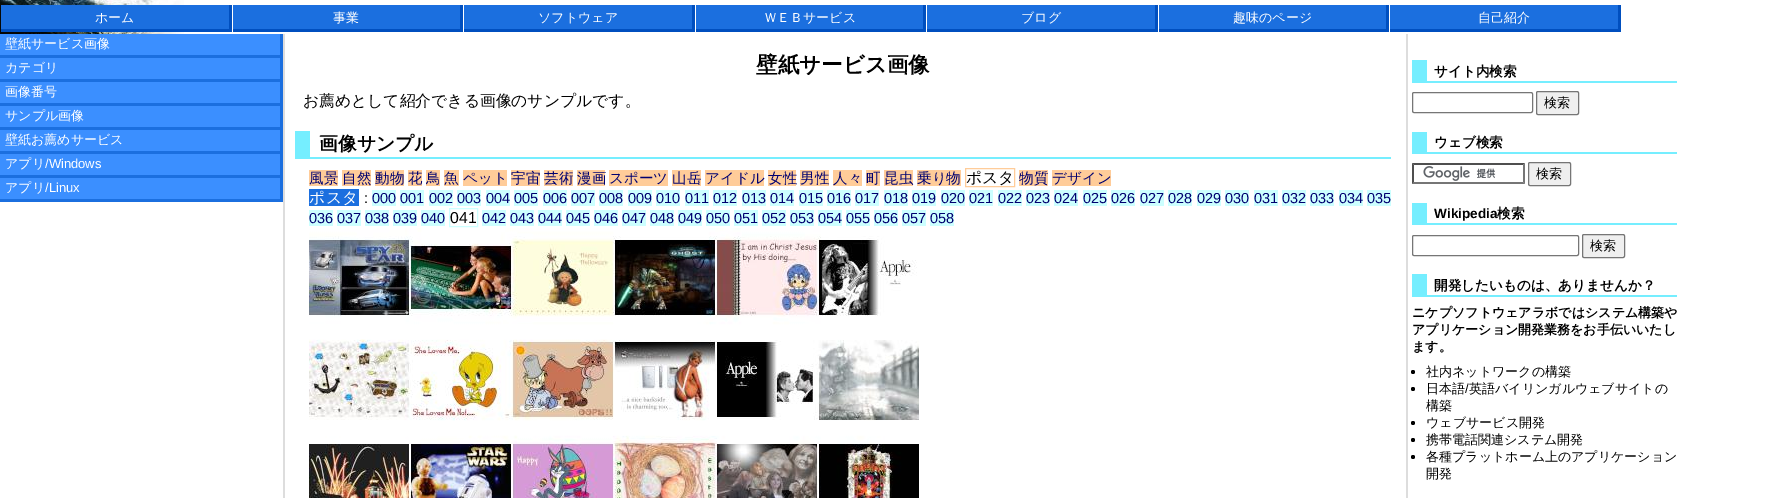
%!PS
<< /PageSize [1768 498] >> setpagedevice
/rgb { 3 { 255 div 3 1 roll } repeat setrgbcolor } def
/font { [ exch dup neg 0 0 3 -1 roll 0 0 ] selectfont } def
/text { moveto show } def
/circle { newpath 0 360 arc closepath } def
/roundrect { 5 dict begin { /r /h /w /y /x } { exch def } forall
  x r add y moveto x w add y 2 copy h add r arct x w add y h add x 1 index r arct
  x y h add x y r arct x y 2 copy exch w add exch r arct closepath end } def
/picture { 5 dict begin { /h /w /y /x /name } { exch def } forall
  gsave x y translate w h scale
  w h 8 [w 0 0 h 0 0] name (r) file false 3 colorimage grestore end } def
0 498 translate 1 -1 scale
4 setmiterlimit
255 255 255 rgb
0 0 1768 498 rectfill
(img_01.rgb) 0 0 184 34 picture
27 111 223 rgb
1 5 228 24 rectfill
0 79 191 rgb
229 5 3 27 rectfill
1 29 231 3 rectfill
27 111 223 rgb
233 5 227 24 rectfill
0 79 191 rgb
460 5 3 27 rectfill
233 29 230 3 rectfill
27 111 223 rgb
464 5 228 24 rectfill
0 79 191 rgb
692 5 3 27 rectfill
464 29 231 3 rectfill
27 111 223 rgb
696 5 227 24 rectfill
0 79 191 rgb
923 5 3 27 rectfill
696 29 230 3 rectfill
27 111 223 rgb
927 5 228 24 rectfill
0 79 191 rgb
1155 5 3 27 rectfill
927 29 231 3 rectfill
27 111 223 rgb
1159 5 227 24 rectfill
0 79 191 rgb
1386 5 3 27 rectfill
1159 29 230 3 rectfill
27 111 223 rgb
1390 5 228 24 rectfill
0 79 191 rgb
1618 5 3 27 rectfill
1390 29 231 3 rectfill
59 143 255 rgb
0 34 280 21 rectfill
27 111 223 rgb
280 34 3 168 rectfill
0 55 283 3 rectfill
59 143 255 rgb
0 58 280 21 rectfill
27 111 223 rgb
0 79 283 3 rectfill
59 143 255 rgb
0 82 280 21 rectfill
27 111 223 rgb
0 103 283 3 rectfill
59 143 255 rgb
0 106 280 21 rectfill
27 111 223 rgb
0 127 283 3 rectfill
59 143 255 rgb
0 130 280 21 rectfill
27 111 223 rgb
0 151 283 3 rectfill
59 143 255 rgb
0 154 280 21 rectfill
27 111 223 rgb
0 175 283 3 rectfill
59 143 255 rgb
0 178 280 21 rectfill
27 111 223 rgb
0 199 283 3 rectfill
221 221 221 rgb
1406 34 2 464 rectfill
283 34 2 464 rectfill
117 238 255 rgb
310 157 1081 2 rectfill
295 131 15 28 rectfill
255 204 153 rgb
309 170 29 16 rectfill
342 170 29 16 rectfill
375 170 29 16 rectfill
408 170 14 16 rectfill
426 170 14 16 rectfill
444 170 15 16 rectfill
463 170 44 16 rectfill
511 170 29 16 rectfill
544 170 29 16 rectfill
577 170 28 16 rectfill
609 170 59 16 rectfill
672 170 29 16 rectfill
705 170 59 16 rectfill
768 170 28 16 rectfill
800 170 29 16 rectfill
833 170 29 16 rectfill
866 170 14 16 rectfill
884 170 29 16 rectfill
917 170 44 16 rectfill
965.5 168.5 49 18 rectstroke
1019 170 29 16 rectfill
1052 170 59 16 rectfill
27 111 223 rgb
309 189 50 17 rectfill
204 255 255 rgb
372 190 24 16 rectfill
400 190 24 16 rectfill
429 190 24 16 rectfill
457 190 24 16 rectfill
486 190 24 16 rectfill
514 190 24 16 rectfill
543 190 24 16 rectfill
571 190 24 16 rectfill
599 190 24 16 rectfill
628 190 24 16 rectfill
656 190 24 16 rectfill
685 190 24 16 rectfill
713 190 24 16 rectfill
742 190 24 16 rectfill
770 190 24 16 rectfill
799 190 24 16 rectfill
827 190 24 16 rectfill
855 190 24 16 rectfill
884 190 24 16 rectfill
912 190 24 16 rectfill
941 190 24 16 rectfill
969 190 24 16 rectfill
998 190 24 16 rectfill
1026 190 24 16 rectfill
1054 190 24 16 rectfill
1083 190 24 16 rectfill
1111 190 24 16 rectfill
1140 190 24 16 rectfill
1168 190 24 16 rectfill
1197 190 24 16 rectfill
1225 190 24 16 rectfill
1254 190 24 16 rectfill
1282 190 24 16 rectfill
1310 190 24 16 rectfill
1339 190 24 16 rectfill
1367 190 24 16 rectfill
309 210 24 16 rectfill
337 210 24 16 rectfill
365 210 24 16 rectfill
393 210 24 16 rectfill
421 210 24 16 rectfill
449.5 208.5 28 18 rectstroke
482 210 24 16 rectfill
510 210 24 16 rectfill
538 210 24 16 rectfill
566 210 24 16 rectfill
594 210 24 16 rectfill
622 210 24 16 rectfill
650 210 24 16 rectfill
678 210 24 16 rectfill
706 210 24 16 rectfill
734 210 24 16 rectfill
762 210 24 16 rectfill
790 210 24 16 rectfill
818 210 24 16 rectfill
846 210 24 16 rectfill
874 210 24 16 rectfill
902 210 24 16 rectfill
930 210 24 16 rectfill
(img_02.rgb) 309 228 610 270 picture
117 238 255 rgb
1427 81 250 2 rectfill
1412 60 15 23 rectfill
118 118 118 rgb
1412.5 92.5 120 20 1.5 roundrect stroke
239 239 239 rgb
1536.5 91.5 42 23 1.5 roundrect gsave fill grestore
118 118 118 rgb
stroke
117 238 255 rgb
1427 152 250 2 rectfill
1412 132 15 22 rectfill
(img_03.rgb) 1423 166 73 15 picture
79 79 79 rgb
1412 163 moveto 113 0 rlineto -2 2 rlineto -109 0 rlineto closepath fill
118 118 118 rgb
1525 163 moveto 0 21 rlineto -2 -2 rlineto 0 -17 rlineto closepath fill
1525 184 moveto -113 0 rlineto 2 -2 rlineto 109 0 rlineto closepath fill
79 79 79 rgb
1412 184 moveto 0 -21 rlineto 2 2 rlineto 0 17 rlineto closepath fill
239 239 239 rgb
1528.5 162.5 42 23 1.5 roundrect gsave fill grestore
118 118 118 rgb
stroke
117 238 255 rgb
1427 223 250 2 rectfill
1412 203 15 22 rectfill
118 118 118 rgb
1412.5 235.5 166 20 1.5 roundrect stroke
239 239 239 rgb
1582.5 234.5 42 23 1.5 roundrect gsave fill grestore
118 118 118 rgb
stroke
117 238 255 rgb
1427 295 250 2 rectfill
1412 274 15 23 rectfill
0 0 0 rgb
1413 372 2 circle fill
1413 389 2 circle fill
1413 423 2 circle fill
1413 440 2 circle fill
1413 457 2 circle fill
/WenQuanYiZenHei-Medium 13 font
255 255 255 rgb
(ホーム) 95 22 text
(事業) 333 22 text
(ソフトウェア) 538 22 text
(ＷＥＢサービス) 764 22 text
(ブログ) 1021 22 text
(趣味のページ) 1233 22 text
(自己紹介) 1478 22 text
(壁紙サービス画像) 5 48 text
(カテゴリ) 5 72 text
(画像番号) 5 96 text
(サンプル画像) 5 120 text
(壁紙お薦めサービス) 5 144 text
(アプリ) 5 168 text
/LiberationSans-Regular 13 font
(/Windows) 45 168 text
/WenQuanYiZenHei-Medium 13 font
(アプリ) 5 192 text
/LiberationSans-Regular 13 font
(/Linux) 45 192 text
/WenQuanYiZenHei-Bold 21.5 font
0 0 0 rgb
(壁紙サービス画像) 756 72 text
/WenQuanYiZenHei-Medium 15.8 font
(お薦めとして紹介できる画像のサンプルです。) 303 106 text
/WenQuanYiZenHei-Bold 18.75 font
(画像サンプル) 319 150 text
/WenQuanYiZenHei-Medium 14.5 font
0 0 112 rgb
(風景) 309 183 text
(自然) 342 183 text
(動物) 375 183 text
(花) 408 183 text
(鳥) 426 183 text
(魚) 444 183 text
(ペット) 463 183 text
(宇宙) 511 183 text
(芸術) 544 183 text
(漫画) 577 183 text
(スポーツ) 609 183 text
(山岳) 672 183 text
(アイドル) 705 183 text
(女性) 768 183 text
(男性) 800 183 text
(人々) 833 183 text
(町) 866 183 text
(昆虫) 884 183 text
(乗り物) 917 183 text
/WenQuanYiZenHei-Medium 15.8 font
0 0 0 rgb
(ポスタ) 966 183 text
/WenQuanYiZenHei-Medium 14.5 font
0 0 112 rgb
(物質) 1019 183 text
(デザイン) 1052 183 text
/WenQuanYiZenHei-Medium 15.8 font
255 255 255 rgb
309 203 moveto 0.5 0 (ポスタ) ashow
/LiberationSans-Regular 14.5 font
0 0 0 rgb
(:) 364 203 text
0 0 112 rgb
(000) 372 203 text
(001) 400 203 text
(002) 429 203 text
(003) 457 203 text
(004) 486 203 text
(005) 514 203 text
(006) 543 203 text
(007) 571 203 text
(008) 599 203 text
(009) 628 203 text
(010) 656 203 text
(011) 685 203 text
(012) 713 203 text
(013) 742 203 text
(014) 770 203 text
(015) 799 203 text
(016) 827 203 text
(017) 855 203 text
(018) 884 203 text
(019) 912 203 text
(020) 941 203 text
(021) 969 203 text
(022) 998 203 text
(023) 1026 203 text
(024) 1054 203 text
(025) 1083 203 text
(026) 1111 203 text
(027) 1140 203 text
(028) 1168 203 text
(029) 1197 203 text
(030) 1225 203 text
(031) 1254 203 text
(032) 1282 203 text
(033) 1310 203 text
(034) 1339 203 text
(035) 1367 203 text
(036) 309 223 text
(037) 337 223 text
(038) 365 223 text
(039) 393 223 text
(040) 421 223 text
/LiberationSans-Regular 15.8 font
0 0 0 rgb
(041) 450 223 text
/LiberationSans-Regular 14.5 font
0 0 112 rgb
(042) 482 223 text
(043) 510 223 text
(044) 538 223 text
(045) 566 223 text
(046) 594 223 text
(047) 622 223 text
(048) 650 223 text
(049) 678 223 text
(050) 706 223 text
(051) 734 223 text
(052) 762 223 text
(053) 790 223 text
(054) 818 223 text
(055) 846 223 text
(056) 874 223 text
(057) 902 223 text
(058) 930 223 text
/WenQuanYiZenHei-Bold 13.6 font
0 0 0 rgb
(サイト内検索) 1434 76 text
/WenQuanYiZenHei-Medium 13 font
(検索) 1544 107 text
/WenQuanYiZenHei-Bold 13.6 font
(ウェブ検索) 1434 147 text
/WenQuanYiZenHei-Medium 13 font
(検索) 1536 178 text
/LiberationSans-Bold 13.6 font
(Wikipedia) 1434 218 text
/WenQuanYiZenHei-Bold 13.6 font
(検索) 1497 218 text
/WenQuanYiZenHei-Medium 13 font
(検索) 1590 250 text
/WenQuanYiZenHei-Bold 13.6 font
(開発したいものは、ありませんか？) 1434 290 text
/WenQuanYiZenHei-Bold 13 font
(ニケプソフトウェアラボではシステム構築や) 1412 317 text
(アプリケーション開発業務をお手伝いいたし) 1412 334 text
(ます。) 1412 351 text
/WenQuanYiZenHei-Medium 13 font
(社内ネットワークの構築) 1426 376 text
(日本語) 1426 393 text
/LiberationSans-Regular 13 font
(/) 1465 393 text
/WenQuanYiZenHei-Medium 13 font
(英語バイリンガルウェブサイトの) 1469 393 text
(構築) 1426 410 text
(ウェブサービス開発) 1426 427 text
(携帯電話関連システム開発) 1426 444 text
(各種プラットホーム上のアプリケーション) 1426 461 text
(開発) 1426 478 text
showpage
